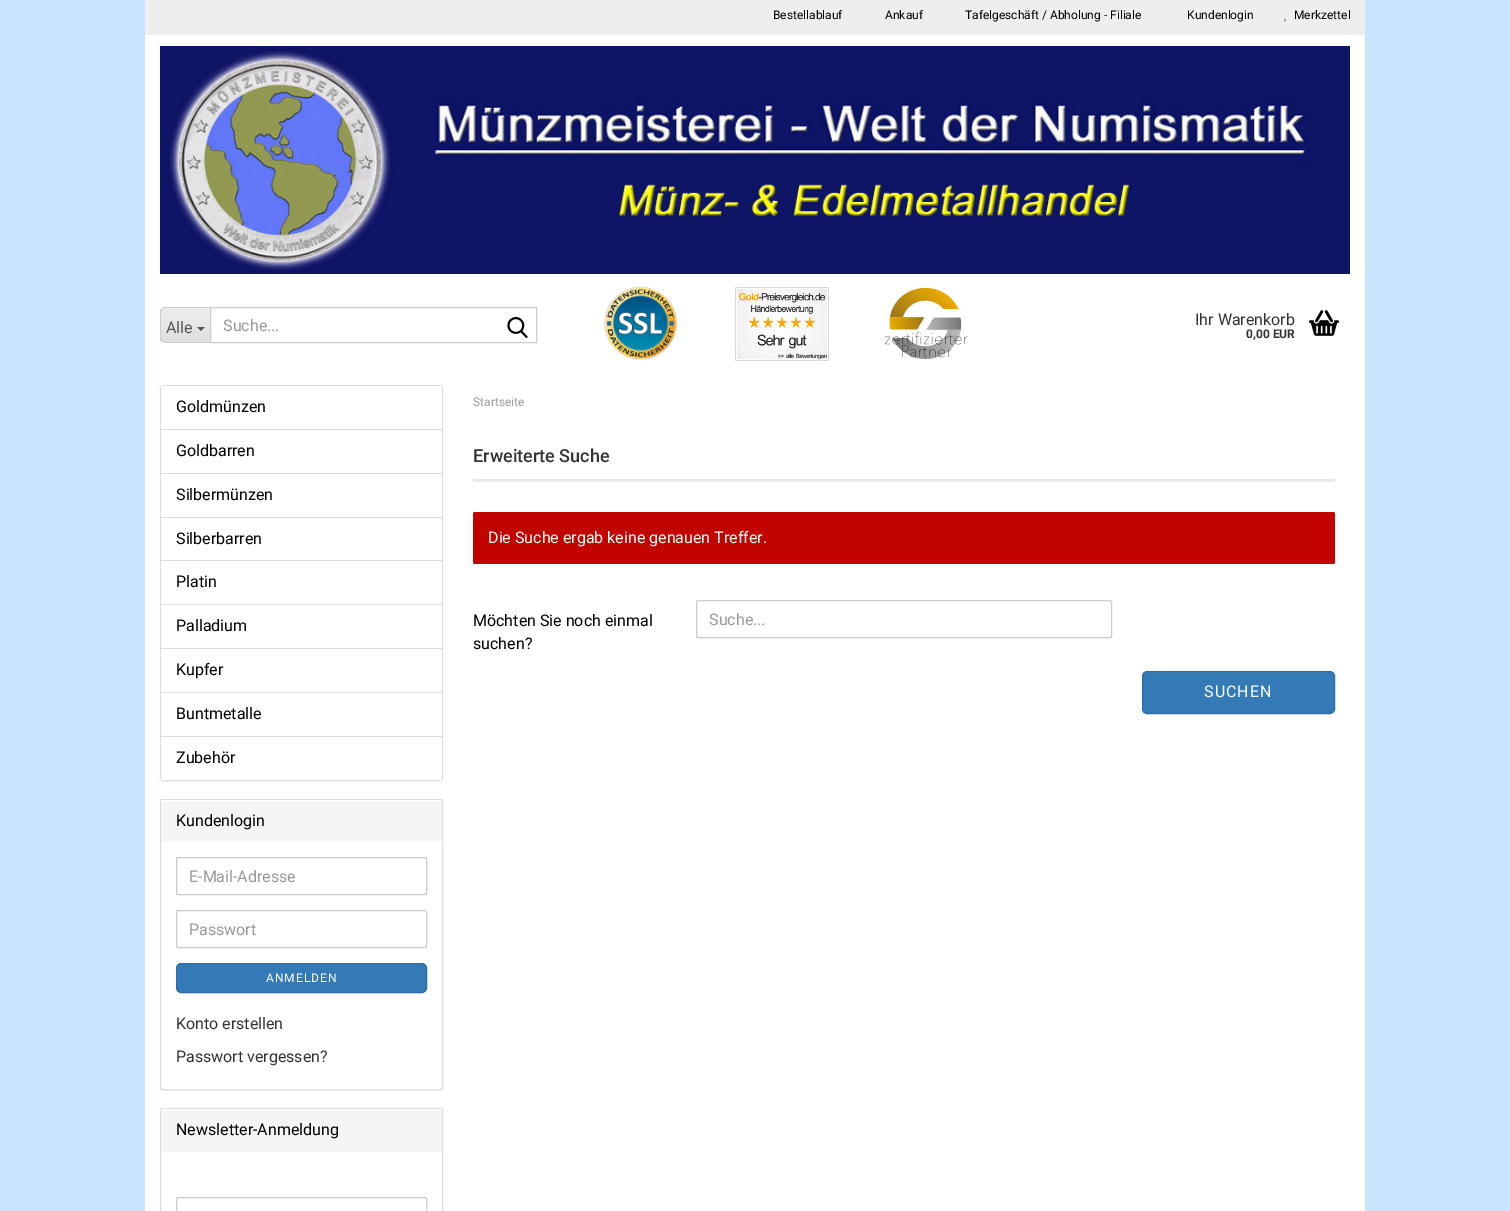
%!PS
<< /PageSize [1510 1211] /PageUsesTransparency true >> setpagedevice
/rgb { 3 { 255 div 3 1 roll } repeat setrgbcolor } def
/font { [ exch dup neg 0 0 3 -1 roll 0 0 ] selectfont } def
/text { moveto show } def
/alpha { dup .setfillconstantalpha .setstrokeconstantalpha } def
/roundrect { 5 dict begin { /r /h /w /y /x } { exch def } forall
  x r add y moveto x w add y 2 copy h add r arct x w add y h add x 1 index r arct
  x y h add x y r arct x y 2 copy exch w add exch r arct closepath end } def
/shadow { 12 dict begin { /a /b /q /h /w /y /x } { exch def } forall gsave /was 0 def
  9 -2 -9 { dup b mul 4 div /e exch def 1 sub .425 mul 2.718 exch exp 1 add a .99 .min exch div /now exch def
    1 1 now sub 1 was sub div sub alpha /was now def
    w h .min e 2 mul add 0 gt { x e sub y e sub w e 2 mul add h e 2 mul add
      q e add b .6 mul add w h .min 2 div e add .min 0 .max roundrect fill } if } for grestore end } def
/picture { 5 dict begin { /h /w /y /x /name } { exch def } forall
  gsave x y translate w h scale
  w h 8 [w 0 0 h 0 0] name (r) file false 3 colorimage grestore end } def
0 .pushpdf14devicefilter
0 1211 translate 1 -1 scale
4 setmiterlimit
201 228 255 rgb
0 0 1510 1211 rectfill
255 255 255 rgb
145 35 1220 1176 rectfill
238 238 238 rgb
145 0 1220 35 rectfill
(img_01.rgb) 1284 19 2 3 picture
(img_02.rgb) 160 46 1190 228 picture
gsave
166 307 moveto 44 0 rlineto 0 36 rlineto -44 0 rlineto -3.5 0 -6 -2.5 -6 -6 rcurveto 0 -24 rlineto 0 -3.5 2.5 -6 6 -6 rcurveto closepath clip newpath
gsave 160 308 moveto 50 0 rlineto 0 34 rlineto -50 0 rlineto closepath clip newpath
<< /ShadingType 2 /ColorSpace /DeviceRGB /Coords [186 308 186 342] /Extend [true true] /Function << /FunctionType 2 /Domain [0 1] /C0 [0.933 0.933 0.933] /C1 [0.871 0.871 0.871] /N 1 >> >> shfill grestore
grestore
204 204 204 rgb
166 307 moveto 44 0 rlineto 0 36 rlineto -44 0 rlineto -3 0 -6 -3 -6 -6 rcurveto 0 -24 rlineto 0 -3 3 -6 6 -6 rcurveto closepath 166 308 moveto 44 0 rlineto 0 34 rlineto -44 0 rlineto -3 0 -5 -2 -5 -5 rcurveto 0 -24 rlineto 0 -3 2 -5 5 -5 rcurveto closepath eofill
85 85 85 rgb
197 327 moveto 8 0 rlineto -4 4 rlineto closepath fill
204 204 204 rgb
210.5 307.5 326 35 rectstroke
(img_03.rgb) 507 317 21 21 picture
(img_04.rgb) 604 286 73 74 picture
(img_05.rgb) 735 287 94 74 picture
(img_06.rgb) 885 287 83 73 picture
(img_07.rgb) 1309 310 30 26 picture
0 0 0 rgb
160 386 283 396 2 0.5 0.05 shadow
255 255 255 rgb
160 385 283 396 2 roundrect fill
221 221 221 rgb
161 385 281 1 rectfill
442 386 1 394 rectfill
160 386 1 394 rectfill
161 429 281 1 rectfill
161 473 281 1 rectfill
161 517 281 1 rectfill
161 560 281 1 rectfill
161 604 281 1 rectfill
161 648 281 1 rectfill
161 692 281 1 rectfill
161 736 281 1 rectfill
162 780 279 1 rectfill
0 0 0 rgb
160 800 283 291 2 0.5 0.05 shadow
255 255 255 rgb
160.5 799.5 282 290 1.5 roundrect gsave fill grestore
221 221 221 rgb
stroke
245 245 245 rgb
162 800 moveto 279 0 rlineto 0.5 0 1 0.5 1 1 rcurveto 0 41 rlineto -281 0 rlineto 0 -41 rlineto 0 -0.5 0.5 -1 1 -1 rcurveto closepath fill
255 255 255 rgb
162 801 moveto 279 0 rlineto 1 0 1 0 1 1 rcurveto 0 -1 0 -2 -1 -2 rcurveto -279 0 rlineto -1 0 rlineto 0 2 rlineto closepath fill
204 204 204 rgb
176.5 857.5 250 37 1.5 roundrect stroke
176.5 910.5 250 37 1.5 roundrect stroke
51 122 183 rgb
176.5 963.5 250 29 4.5 roundrect gsave fill grestore
45 109 163 rgb
stroke
221 221 221 rgb
160.5 1108.5 282 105 1.5 roundrect stroke
245 245 245 rgb
162 1109 moveto 279 0 rlineto 0.5 0 1 0.5 1 1 rcurveto 0 42 rlineto -281 0 rlineto 0 -42 rlineto 0 -0.5 0.5 -1 1 -1 rcurveto closepath fill
255 255 255 rgb
162 1110 moveto 279 0 rlineto 1 0 1 0 1 1 rcurveto 0 -1 0 -2 -1 -2 rcurveto -279 0 rlineto -1 0 rlineto 0 2 rlineto closepath fill
204 204 204 rgb
176.5 1197.5 250 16 1.5 roundrect stroke
231 231 231 rgb
473 479 862 3 rectfill
194 4 0 rgb
473 512 862 52 2 roundrect fill
204 204 204 rgb
696.5 600.5 415 37 1.5 roundrect stroke
51 122 183 rgb
1142.5 671.5 192 42 4.5 roundrect gsave fill grestore
45 109 163 rgb
stroke
/Roboto-Regular 12 font
0 0 0 rgb
(Bestellablauf) 773 19 text
(Ankauf) 885 19 text
(Tafelgeschäft / Abholung - Filiale) 965 19 text
(Kundenlogin) 1187 19 text
(Merkzettel) 1294 19 text
/Roboto-Regular 16 font
85 85 85 rgb
(Alle) 166 333 text
153 153 153 rgb
(Suche...) 223 331 text
51 51 51 rgb
(Ihr Warenkorb) 1195 325 text
/Roboto-Bold 12 font
(0,00 EUR) 1246 338 text
/Roboto-Regular 16 font
0 0 0 rgb
(Goldmünzen) 176 412 text
(Goldbarren) 176 456 text
(Silbermünzen) 176 500 text
(Silberbarren) 176 544 text
(Platin) 176 587 text
(Palladium) 176 631 text
(Kupfer) 176 675 text
(Buntmetalle) 176 719 text
(Zubehör) 176 763 text
(Kundenlogin) 176 826 text
153 153 153 rgb
(E-Mail-Adresse) 189 882 text
(Passwort) 189 935 text
/Roboto-Regular 12 font
255 255 255 rgb
266 982 moveto 1 0 (ANMELDEN) ashow
/Roboto-Regular 16 font
51 51 51 rgb
(Konto erstellen) 176 1029 text
(Passwort vergessen?) 176 1062 text
0 0 0 rgb
(Newsletter-Anmeldung) 176 1135 text
/Roboto-Regular 12 font
153 153 153 rgb
(Startseite) 473 406 text
/Roboto-Medium 18 font
51 51 51 rgb
(Erweiterte Suche) 473 462 text
/Roboto-Regular 16 font
255 255 255 rgb
(Die Suche ergab keine genauen Treffer.) 488 543 text
0 0 0 rgb
(Möchten Sie noch einmal) 473 626 text
(suchen?) 473 649 text
153 153 153 rgb
(Suche...) 709 625 text
255 255 255 rgb
1204 697 moveto 1 0 (SUCHEN) ashow
.poppdf14devicefilter showpage
